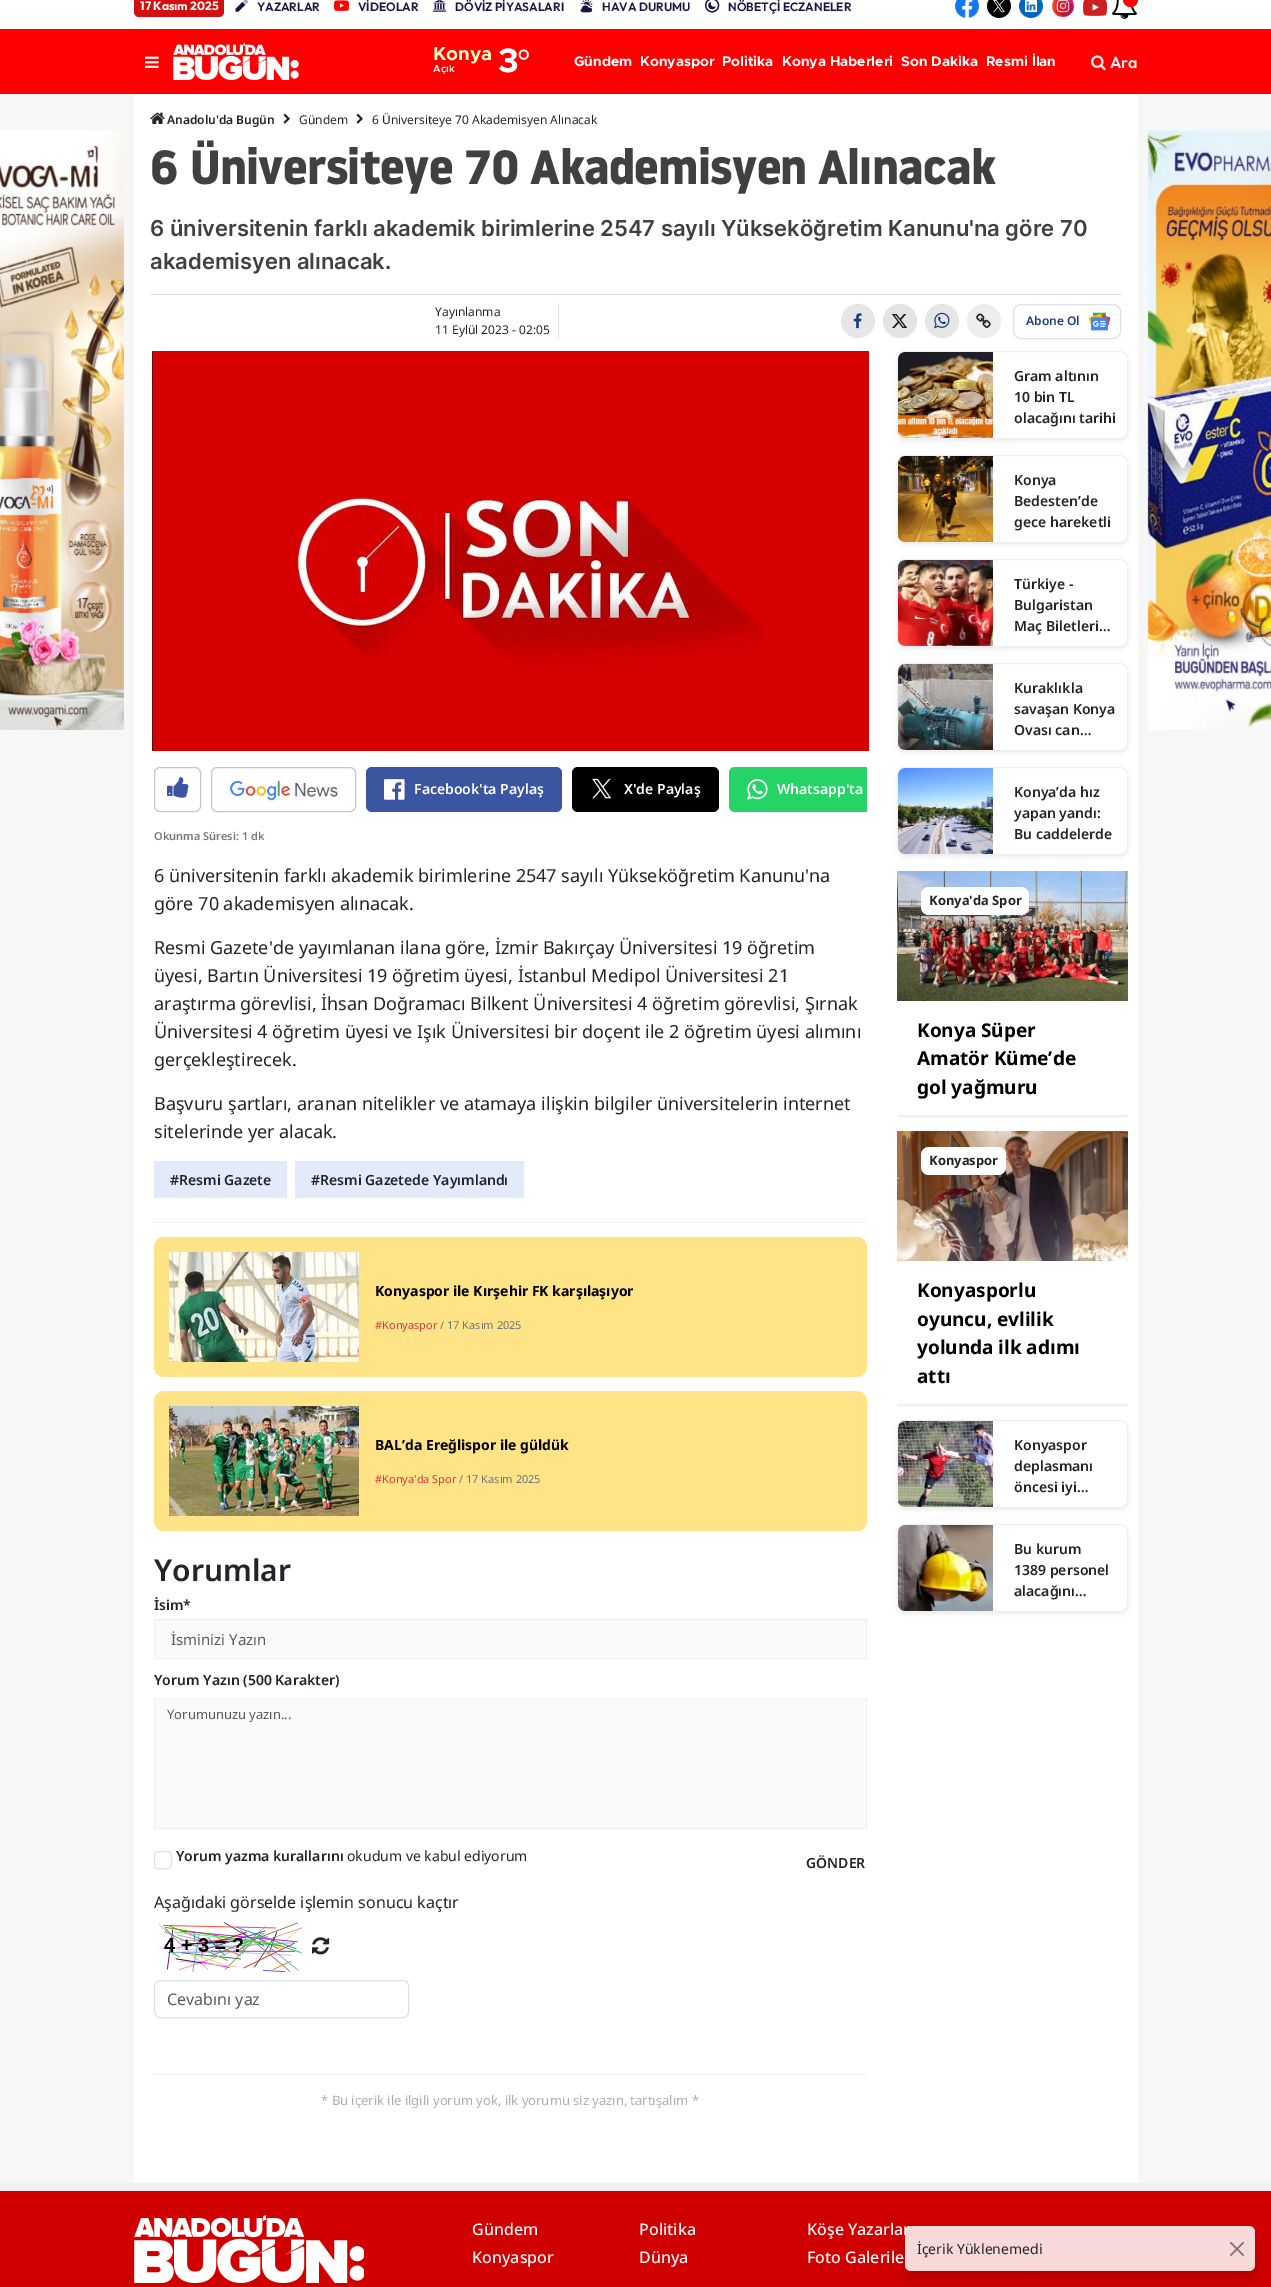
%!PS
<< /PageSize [1271 2287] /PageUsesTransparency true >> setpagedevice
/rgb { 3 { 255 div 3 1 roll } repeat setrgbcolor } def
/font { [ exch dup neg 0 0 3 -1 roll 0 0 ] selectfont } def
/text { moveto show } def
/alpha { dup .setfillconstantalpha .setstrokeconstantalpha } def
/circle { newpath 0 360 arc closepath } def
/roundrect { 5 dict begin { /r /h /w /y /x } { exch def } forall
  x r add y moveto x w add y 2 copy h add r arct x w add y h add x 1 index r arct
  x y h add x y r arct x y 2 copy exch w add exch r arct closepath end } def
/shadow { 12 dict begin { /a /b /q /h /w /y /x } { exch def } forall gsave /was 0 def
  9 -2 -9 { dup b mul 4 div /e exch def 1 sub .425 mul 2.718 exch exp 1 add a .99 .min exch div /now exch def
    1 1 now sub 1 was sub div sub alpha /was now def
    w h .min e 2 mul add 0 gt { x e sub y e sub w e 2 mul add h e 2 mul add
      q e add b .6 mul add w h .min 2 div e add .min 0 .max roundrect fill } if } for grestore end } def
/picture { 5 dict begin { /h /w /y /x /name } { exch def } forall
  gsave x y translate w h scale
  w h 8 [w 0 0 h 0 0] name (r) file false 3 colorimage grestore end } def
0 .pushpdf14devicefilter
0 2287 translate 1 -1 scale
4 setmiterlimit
241 241 241 rgb
0 0 1271 2287 rectfill
255 255 255 rgb
0 0 1271 29 rectfill
212 15 15 rgb
134 -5 90 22 5 roundrect fill
(img_02.rgb) 235 1 11 11 picture
(img_01.rgb) 243 0 5 4 picture
(img_03.rgb) 334 0 15 11 picture
(img_04.rgb) 432 0 15 12 picture
(img_05.rgb) 580 0 13 13 picture
(img_06.rgb) 705 0 15 13 picture
(img_07.rgb) 705 0 15 13 picture
(img_08.rgb) 955 0 24 18 picture
(img_09.rgb) 987 0 24 18 picture
(img_10.rgb) 1019 0 24 18 picture
(img_11.rgb) 1051 0 24 18 picture
(img_12.rgb) 1083 0 24 16 picture
(img_13.rgb) 1112 0 25 19 picture
255 0 0 rgb
1130.5 -0.5 7.5 circle fill
0 29 1271 65 rectfill
(img_14.rgb) 145 56 14 12 picture
(img_15.rgb) 173 43 126 37 picture
(img_16.rgb) 1091 55 15 16 picture
247 247 247 rgb
0 94 1271 2089 rectfill
(img_17.rgb) 0 130 124 600 picture
255 255 255 rgb
134 94 1004 2089 rectfill
(img_18.rgb) 150 112 15 12 picture
(img_19.rgb) 283 113 7 11 picture
(img_19.rgb) 356 113 7 11 picture
222 226 230 rgb
150 294 972 1 rectfill
558 303 1 36 rectfill
230 230 230 rgb
858 321 17 circle fill
(img_20.rgb) 853 313 9 16 picture
227 227 227 rgb
900 321 17 circle fill
(img_21.rgb) 891 314 17 14 picture
230 230 230 rgb
942 321 17 circle fill
(img_22.rgb) 934 312 16 17 picture
237 237 237 rgb
984 321 17 circle fill
(img_23.rgb) 976 313 15 15 picture
222 226 230 rgb
1013.5 304.5 107 34 7.5 roundrect stroke
(img_24.rgb) 1088 312 23 21 picture
(img_25.rgb) 152 351 717 400 picture
199 199 199 rgb
154.5 767.5 46 44 5.5 roundrect stroke
(img_26.rgb) 167 777 22 21 picture
211.5 767.5 144 44 5.5 roundrect stroke
(img_27.rgb) 229 780 109 21 picture
59 85 160 rgb
366 767 196 45 6 roundrect fill
(img_28.rgb) 384 779 21 21 picture
0 0 0 rgb
572 767 147 45 6 roundrect fill
(img_29.rgb) 592 778 20 21 picture
37 211 102 rgb
735 767 moveto 132 0 rlineto 0 45 rlineto -132 0 rlineto -3.5 0 -6 -2.5 -6 -6 rcurveto 0 -33 rlineto 0 -3.5 2.5 -6 6 -6 rcurveto closepath fill
(img_30.rgb) 747 779 21 21 picture
240 240 240 rgb
154 1222 713 1 rectfill
227 235 251 rgb
154 1161 133 37 rectfill
295 1161 229 37 rectfill
255 227 135 rgb
154 1237 713 140 10 roundrect fill
(img_31.rgb) 169 1252 190 110 picture
154 1391 713 140 10 roundrect fill
(img_32.rgb) 169 1406 190 110 picture
250 250 250 rgb
154.5 1619.5 moveto 712 0 rlineto 0 39 rlineto -712 0 rlineto closepath gsave fill grestore
240 240 240 rgb
stroke
250 250 250 rgb
154.5 1698.5 moveto 712 0 rlineto 0 130 rlineto -712 0 rlineto closepath gsave fill grestore
240 240 240 rgb
stroke
222 226 230 rgb
154.5 1851.5 17 17 3.5 roundrect stroke
(img_33.rgb) 159 1922 144 50 picture
(img_34.rgb) 312 1937 18 18 picture
154.5 1980.5 254 37 5.5 roundrect stroke
240 240 240 rgb
154 2074 713 1 rectfill
gsave
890 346 moveto 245 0 rlineto 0 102 rlineto -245 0 rlineto closepath 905 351 moveto 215 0 rlineto 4.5 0 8 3.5 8 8 rcurveto 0 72 rlineto 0 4.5 -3.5 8 -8 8 rcurveto -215 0 rlineto -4.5 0 -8 -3.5 -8 -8 rcurveto 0 -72 rlineto 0 -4.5 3.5 -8 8 -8 rcurveto closepath eoclip newpath
0 0 0 rgb
897 353 231 88 8 2 0.07 shadow
grestore
255 255 255 rgb
897.5 351.5 230 87 7.5 roundrect gsave fill grestore
240 240 240 rgb
stroke
(img_35.rgb) 898 352 95 86 picture
gsave
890 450 moveto 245 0 rlineto 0 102 rlineto -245 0 rlineto closepath 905 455 moveto 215 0 rlineto 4.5 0 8 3.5 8 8 rcurveto 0 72 rlineto 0 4.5 -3.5 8 -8 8 rcurveto -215 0 rlineto -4.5 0 -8 -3.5 -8 -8 rcurveto 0 -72 rlineto 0 -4.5 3.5 -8 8 -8 rcurveto closepath eoclip newpath
0 0 0 rgb
897 457 231 88 8 2 0.07 shadow
grestore
255 255 255 rgb
897.5 455.5 230 87 7.5 roundrect gsave fill grestore
240 240 240 rgb
stroke
(img_36.rgb) 898 456 95 86 picture
gsave
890 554 moveto 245 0 rlineto 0 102 rlineto -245 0 rlineto closepath 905 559 moveto 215 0 rlineto 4.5 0 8 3.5 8 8 rcurveto 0 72 rlineto 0 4.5 -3.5 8 -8 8 rcurveto -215 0 rlineto -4.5 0 -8 -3.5 -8 -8 rcurveto 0 -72 rlineto 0 -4.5 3.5 -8 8 -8 rcurveto closepath eoclip newpath
0 0 0 rgb
897 561 231 88 8 2 0.07 shadow
grestore
255 255 255 rgb
897.5 559.5 230 87 7.5 roundrect gsave fill grestore
240 240 240 rgb
stroke
(img_37.rgb) 898 560 95 86 picture
gsave
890 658 moveto 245 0 rlineto 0 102 rlineto -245 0 rlineto closepath 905 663 moveto 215 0 rlineto 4.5 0 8 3.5 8 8 rcurveto 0 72 rlineto 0 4.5 -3.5 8 -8 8 rcurveto -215 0 rlineto -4.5 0 -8 -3.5 -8 -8 rcurveto 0 -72 rlineto 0 -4.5 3.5 -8 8 -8 rcurveto closepath eoclip newpath
0 0 0 rgb
897 665 231 88 8 2 0.07 shadow
grestore
255 255 255 rgb
897.5 663.5 230 87 7.5 roundrect gsave fill grestore
240 240 240 rgb
stroke
(img_38.rgb) 898 664 95 86 picture
gsave
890 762 moveto 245 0 rlineto 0 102 rlineto -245 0 rlineto closepath 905 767 moveto 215 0 rlineto 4.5 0 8 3.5 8 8 rcurveto 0 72 rlineto 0 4.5 -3.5 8 -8 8 rcurveto -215 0 rlineto -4.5 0 -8 -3.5 -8 -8 rcurveto 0 -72 rlineto 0 -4.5 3.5 -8 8 -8 rcurveto closepath eoclip newpath
0 0 0 rgb
897 769 231 88 8 2 0.07 shadow
grestore
255 255 255 rgb
897.5 767.5 230 87 7.5 roundrect gsave fill grestore
240 240 240 rgb
stroke
(img_39.rgb) 898 768 95 86 picture
gsave
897 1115 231 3 rectclip
0 0 0 rgb
897 1003 231 114 0 2 0.07 shadow
grestore
(img_40.rgb) 897 871 231 130 picture
255 255 255 rgb
921 887 108 28 8 roundrect fill
gsave
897 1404 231 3 rectclip
0 0 0 rgb
897 1263 231 143 0 2 0.07 shadow
grestore
(img_41.rgb) 897 1131 231 130 picture
921 1147 85 28 8 roundrect fill
gsave
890 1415 moveto 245 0 rlineto 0 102 rlineto -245 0 rlineto closepath 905 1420 moveto 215 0 rlineto 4.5 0 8 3.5 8 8 rcurveto 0 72 rlineto 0 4.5 -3.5 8 -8 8 rcurveto -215 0 rlineto -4.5 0 -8 -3.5 -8 -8 rcurveto 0 -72 rlineto 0 -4.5 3.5 -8 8 -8 rcurveto closepath eoclip newpath
0 0 0 rgb
897 1422 231 88 8 2 0.07 shadow
grestore
897.5 1420.5 230 87 7.5 roundrect gsave fill grestore
240 240 240 rgb
stroke
(img_42.rgb) 898 1421 95 86 picture
gsave
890 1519 moveto 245 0 rlineto 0 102 rlineto -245 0 rlineto closepath 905 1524 moveto 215 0 rlineto 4.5 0 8 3.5 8 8 rcurveto 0 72 rlineto 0 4.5 -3.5 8 -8 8 rcurveto -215 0 rlineto -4.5 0 -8 -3.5 -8 -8 rcurveto 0 -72 rlineto 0 -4.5 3.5 -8 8 -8 rcurveto closepath eoclip newpath
0 0 0 rgb
897 1526 231 88 8 2 0.07 shadow
grestore
255 255 255 rgb
897.5 1524.5 230 87 7.5 roundrect gsave fill grestore
240 240 240 rgb
stroke
(img_43.rgb) 898 1525 95 86 picture
(img_44.rgb) 1147 130 124 600 picture
209 0 0 rgb
0 2191 1271 96 rectfill
(img_45.rgb) 134 2215 230 68 picture
gsave
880 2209 moveto 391 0 rlineto 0 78 rlineto -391 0 rlineto closepath 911 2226 moveto 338 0 rlineto 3.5 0 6 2.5 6 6 rcurveto 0 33 rlineto 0 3.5 -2.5 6 -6 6 rcurveto -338 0 rlineto -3.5 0 -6 -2.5 -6 -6 rcurveto 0 -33 rlineto 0 -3.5 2.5 -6 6 -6 rcurveto closepath eoclip newpath
0 0 0 rgb
905 2234 350 45 6 8 0.15 shadow
grestore
/Outfit-Bold 12 font
255 255 255 rgb
(17 Kasım 2025) 140 10 text
/Outfit-SemiBold 12 font
23 23 71 rgb
(YAZARLAR) 257 11 text
(VİDEOLAR) 358 11 text
(DÖVİZ PİYASALARI) 455 11 text
(HAVA DURUMU) 602 11 text
(NÖBETÇİ ECZANELER) 728 11 text
/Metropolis-Bold 19 font
251 255 199 rgb
(Konya) 433 60 text
/Metropolis-SemiBold 10 font
255 255 255 rgb
(Açık) 433 72 text
/Metropolis-Bold 34 font
498 72 moveto -2 0 (3) ashow
/LiberationSerif-Bold 34 font
517 72 moveto -2 0 (°) ashow
/Metropolis-Bold 14 font
(Gündem) 574 66 text
(Konyaspor) 640 66 text
(Politika) 722 66 text
(Konya Haberleri) 782 66 text
(Son Dakika) 901 66 text
(Resmi İlan) 986 66 text
/Outfit-SemiBold 16 font
255 237 237 rgb
(Ara) 1110 68 text
/NotoSans-SemiBold 12 font
33 37 41 rgb
(Anadolu'da Bugün) 167 124 text
/NotoSans-Regular 12 font
(Gündem) 299 124 text
(6 Üniversiteye 70 Akademisyen Alınacak) 372 124 text
/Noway-Bold 48 font
64 64 64 rgb
150 184 moveto -0.65 0 (6 Üniversiteye 70 Akademisyen Alınacak) ashow
/Inter-SemiBold 22 font
(6 üniversitenin farklı akademik birimlerine 2547 sayılı Yükseköğretim Kanunu'na göre 70) 150 236 text
(akademisyen alınacak.) 150 269 text
/NotoSans-Regular 12 font
33 37 41 rgb
(Yayınlanma) 435 316 text
(11 Eylül 2023 - 02:05) 435 334 text
/NotoSans-SemiBold 12 font
23 62 128 rgb
(Abone Ol) 1026 325 text
/NotoSans-SemiBold 14 font
255 255 255 rgb
(Facebook'ta Paylaş) 414 794 text
(X'de Paylaş) 624 794 text
(Whatsapp'ta) 777 794 text
/NotoSans-SemiBold 11 font
121 121 121 rgb
(Okunma Süresi: 1 dk) 154 840 text
/NotoSans-Regular 18 font
33 37 41 rgb
(6 üniversitenin farklı akademik birimlerine 2547 sayılı Yükseköğretim Kanunu'na) 154 882 text
(göre 70 akademisyen alınacak.) 154 910 text
(Resmi Gazete'de yayımlanan ilana göre, İzmir Bakırçay Üniversitesi 19 öğretim) 154 954 text
(üyesi, Bartın Üniversitesi 19 öğretim üyesi, İstanbul Medipol Üniversitesi 21) 154 982 text
(araştırma görevlisi, İhsan Doğramacı Bilkent Üniversitesi 4 öğretim görevlisi, Şırnak) 154 1010 text
(Üniversitesi 4 öğretim üyesi ve Işık Üniversitesi bir doçent ile 2 öğretim üyesi alımını) 154 1038 text
(gerçekleştirecek.) 154 1066 text
(Başvuru şartları, aranan nitelikler ve atamaya ilişkin bilgiler üniversitelerin internet) 154 1110 text
(sitelerinde yer alacak.) 154 1138 text
/NotoSans-SemiBold 14 font
(#Resmi Gazete) 170 1185 text
(#Resmi Gazetede Yayımlandı) 311 1185 text
/NotoSans-Bold 14 font
0 0 0 rgb
(Konyaspor ile Kırşehir FK karşılaşıyor) 375 1296 text
/NotoSans-Regular 11 font
220 53 69 rgb
(#Konyaspor) 375 1329 text
108 117 125 rgb
(/ 17 Kasım 2025) 440 1329 text
/NotoSans-Bold 14 font
0 0 0 rgb
(BAL’da Ereğlispor ile güldük) 375 1450 text
/NotoSans-Regular 11 font
220 53 69 rgb
(#Konya'da Spor) 375 1483 text
108 117 125 rgb
(/ 17 Kasım 2025) 459 1483 text
/NotoSans-SemiBold 30 font
33 37 41 rgb
(Yorumlar) 154 1581 text
/NotoSans-SemiBold 14 font
(İsim*) 154 1610 text
/NotoSans-Regular 15 font
89 92 95 rgb
(İsminizi Yazın) 171 1645 text
/NotoSans-SemiBold 14 font
33 37 41 rgb
(Yorum Yazın \(500 Karakter\)) 154 1685 text
/NotoSans-Regular 13 font
89 92 95 rgb
(Yorumunuzu yazın...) 167 1719 text
/NotoSans-SemiBold 14 font
33 37 41 rgb
(Yorum yazma kurallarını) 176 1861 text
/NotoSans-Regular 14 font
(okudum ve kabul ediyorum) 347 1861 text
/NotoSans-SemiBold 14 font
(GÖNDER) 806 1868 text
/NotoSans-Regular 16 font
(Aşağıdaki görselde işlemin sonucu kaçtır) 154 1908 text
89 92 95 rgb
(Cevabını yaz) 167 2005 text
/NotoSans-Regular 13 font
175 175 175 rgb
(* Bu içerik ile ilgili yorum yok, ilk yorumu siz yazın, tartışalım *) 321 2105 text
/NotoSans-SemiBold 14 font
33 37 41 rgb
(Gram altının) 1014 381 text
(10 bin TL) 1014 402 text
(olacağını tarihi) 1014 423 text
(Konya) 1014 485 text
(Bedesten’de) 1014 506 text
(gece hareketli) 1014 527 text
(Türkiye -) 1014 589 text
(Bulgaristan) 1014 610 text
(Maç Biletleri…) 1014 631 text
(Kuraklıkla) 1014 693 text
(savaşan Konya) 1014 714 text
(Ovası can…) 1014 735 text
(Konya’da hız) 1014 797 text
(yapan yandı:) 1014 818 text
(Bu caddelerde) 1014 839 text
/NotoSans-Bold 13 font
(Konya'da Spor) 929 905 text
/NotoSans-Bold 19 font
0 0 0 rgb
(Konya Süper) 917 1037 text
(Amatör Küme’de) 917 1065 text
(gol yağmuru) 917 1094 text
/NotoSans-Bold 13 font
33 37 41 rgb
(Konyaspor) 929 1165 text
/NotoSans-Bold 19 font
0 0 0 rgb
(Konyasporlu) 917 1297 text
(oyuncu, evlilik) 917 1326 text
(yolunda ilk adımı) 917 1354 text
(attı) 917 1383 text
/NotoSans-SemiBold 14 font
33 37 41 rgb
(Konyaspor) 1014 1450 text
(deplasmanı) 1014 1471 text
(öncesi iyi…) 1014 1492 text
(Bu kurum) 1014 1554 text
(1389 personel) 1014 1575 text
(alacağını…) 1014 1596 text
/NotoSans-Medium 16 font
247 247 247 rgb
(Gündem) 472 2235 text
(Konyaspor) 472 2263 text
(Politika) 639 2235 text
(Dünya) 639 2263 text
(Köşe Yazarlar) 807 2235 text
(Foto Galerile) 807 2263 text
0.85 alpha
255 255 255 rgb
905 2226 350 45 6 roundrect fill
/NotoSans-Regular 14 font
1 alpha
33 37 41 rgb
(İçerik Yüklenemedi) 917 2254 text
(img_46.rgb) 1230 2242 14 14 picture
.poppdf14devicefilter showpage
